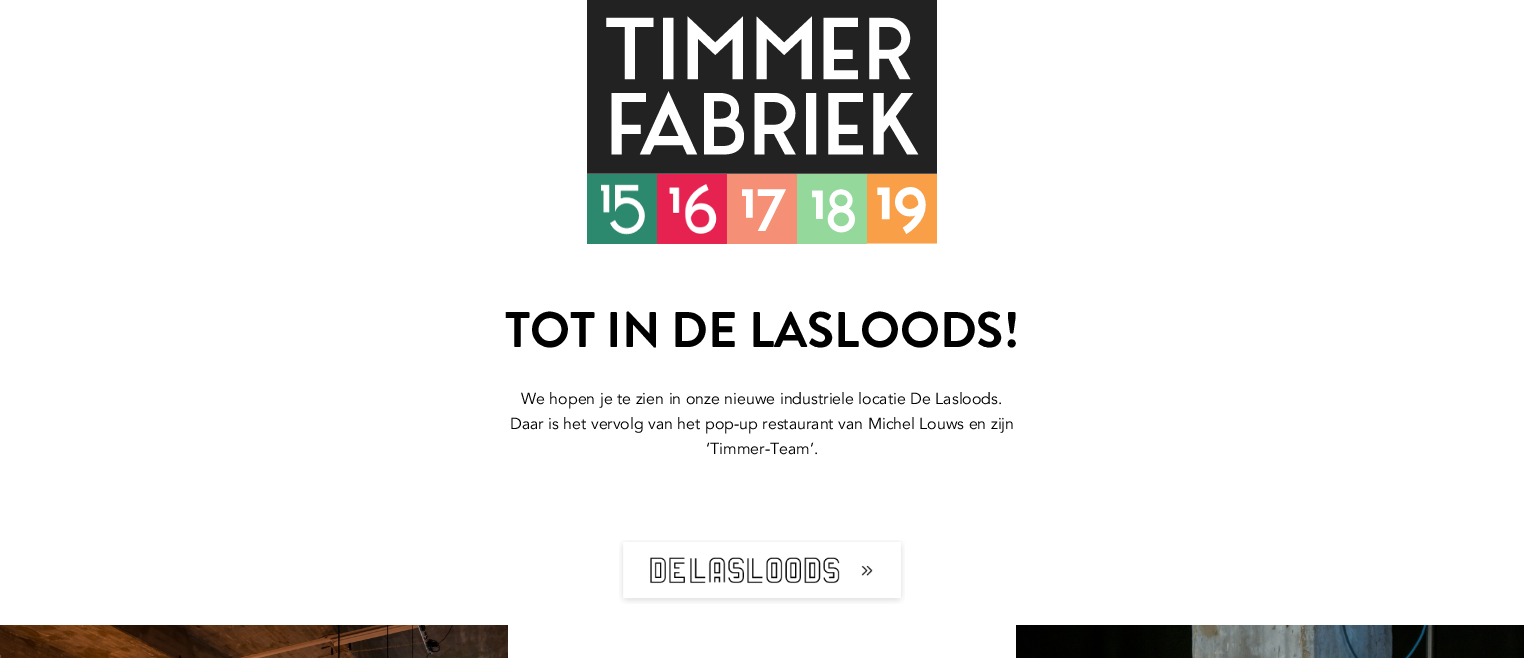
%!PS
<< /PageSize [1524 658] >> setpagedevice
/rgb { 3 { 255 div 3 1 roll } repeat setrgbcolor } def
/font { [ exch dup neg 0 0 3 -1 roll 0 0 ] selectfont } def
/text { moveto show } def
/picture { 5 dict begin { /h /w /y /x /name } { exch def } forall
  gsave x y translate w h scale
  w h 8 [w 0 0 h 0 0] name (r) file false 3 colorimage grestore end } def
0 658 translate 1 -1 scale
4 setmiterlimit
255 255 255 rgb
0 0 1524 658 rectfill
(img_01.rgb) 587 0 350 174 picture
(img_02.rgb) 587 174 70 70 picture
(img_03.rgb) 657 174 70 70 picture
(img_04.rgb) 727 174 70 70 picture
(img_05.rgb) 797 174 70 70 picture
(img_06.rgb) 867 174 70 70 picture
(img_07.rgb) 619 540 286 64 picture
(img_08.rgb) 0 625 508 33 picture
(img_09.rgb) 1016 625 508 33 picture
/BrandonGrotesque-Bold 50 font
0 0 0 rgb
(TOT IN DE LASLOODS!) 505 347 text
/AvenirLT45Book-Regular 16 font
(We hopen je te zien in onze nieuwe industriele locatie De Lasloods.) 521 404 text
(Daar is het vervolg van het pop-up restaurant van Michel Louws en zijn) 510 429 text
(‘Timmer-Team’.) 706 454 text
showpage
